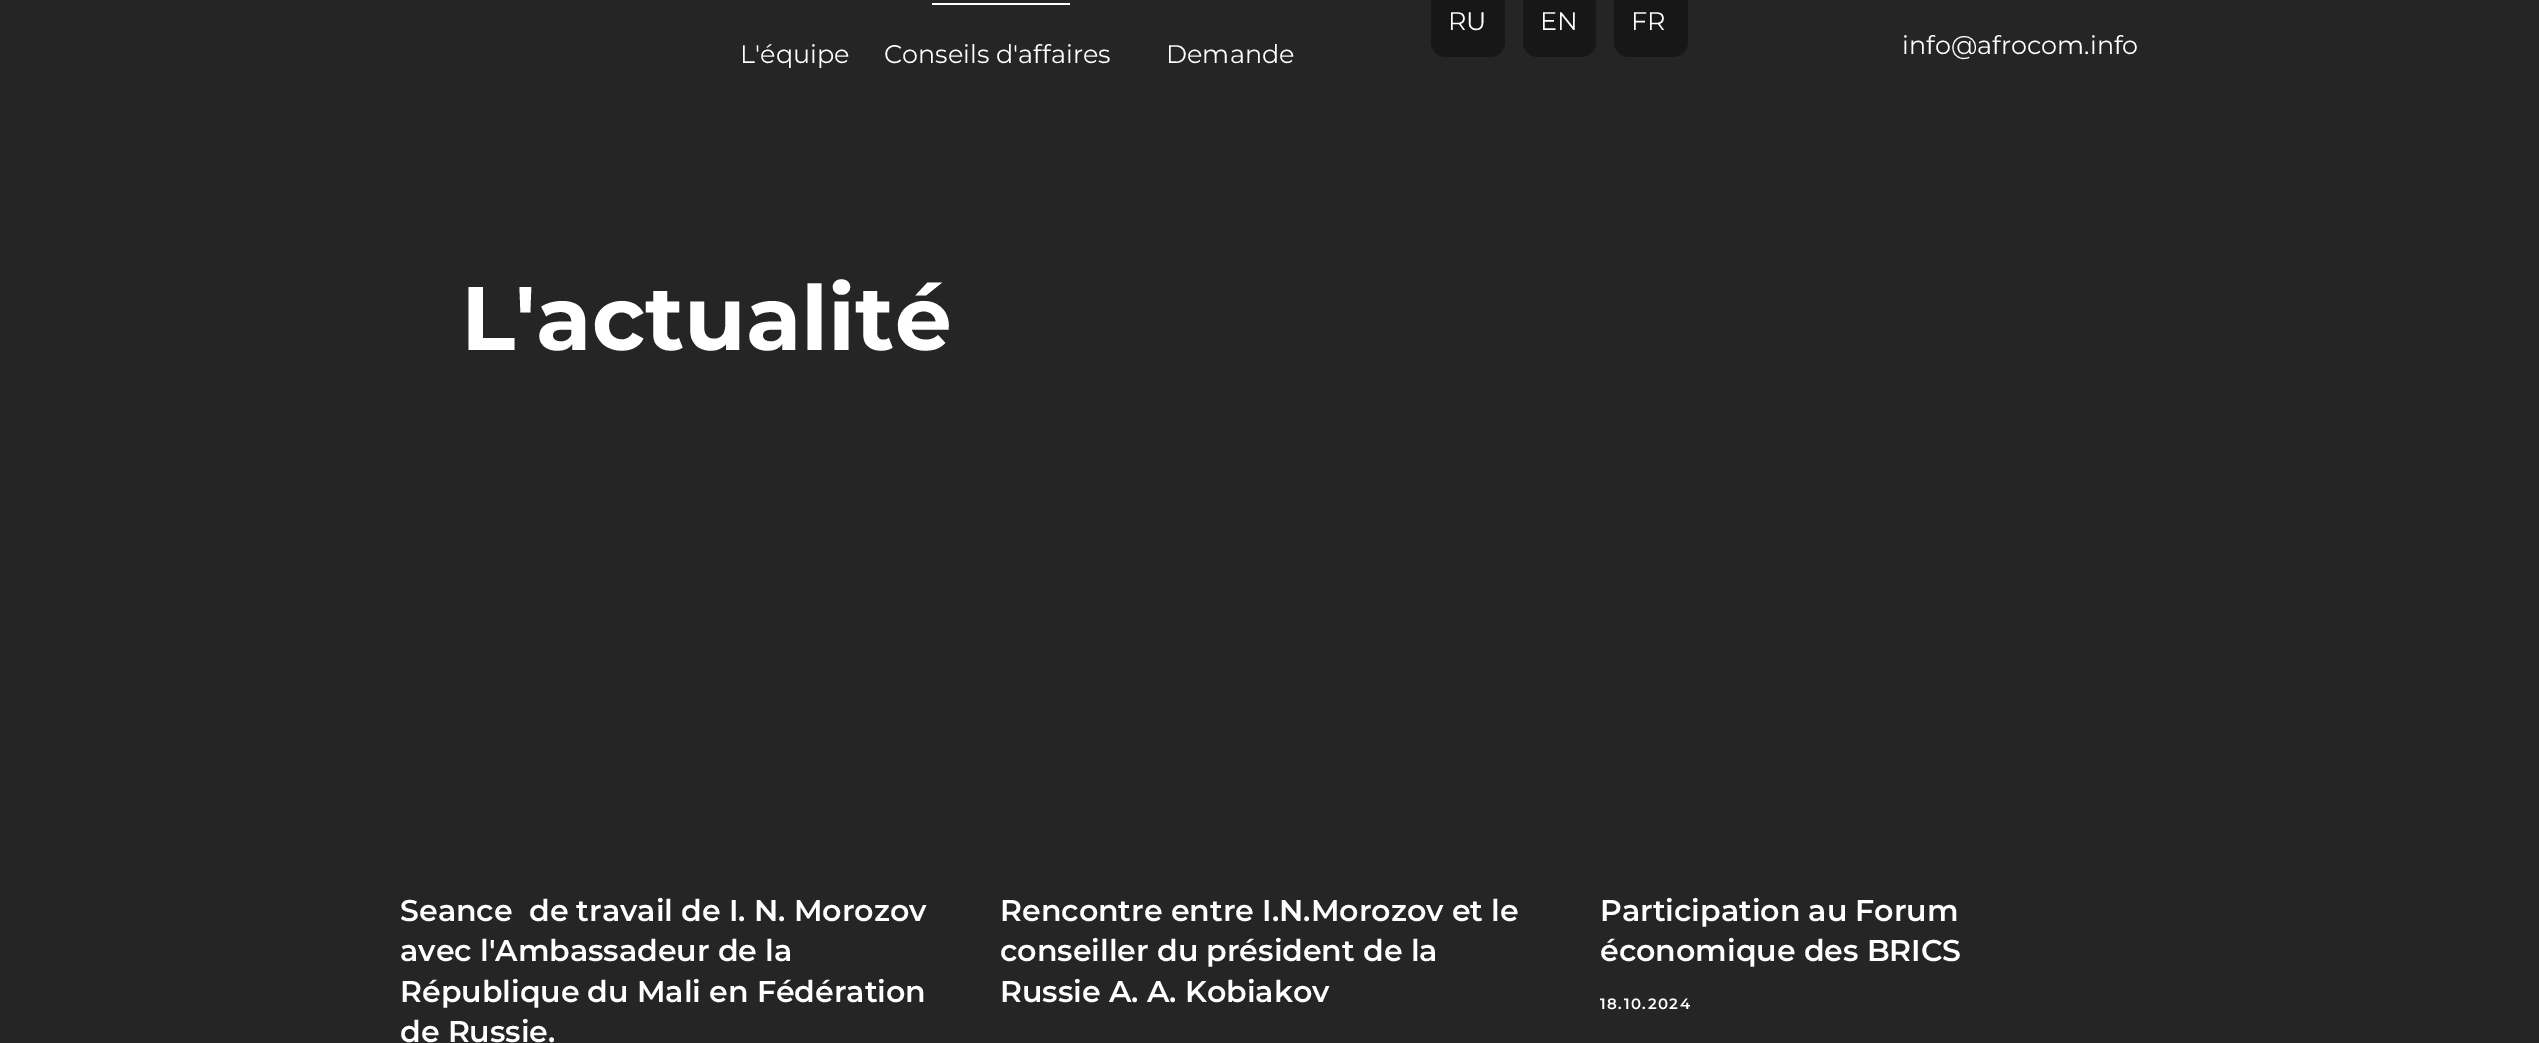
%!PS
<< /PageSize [2539 1043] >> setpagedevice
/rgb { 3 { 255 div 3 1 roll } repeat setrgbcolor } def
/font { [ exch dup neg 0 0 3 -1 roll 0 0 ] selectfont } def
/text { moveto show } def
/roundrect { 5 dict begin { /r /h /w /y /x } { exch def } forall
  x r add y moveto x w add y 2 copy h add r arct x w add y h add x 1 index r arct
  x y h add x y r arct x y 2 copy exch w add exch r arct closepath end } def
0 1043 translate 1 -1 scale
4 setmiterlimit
37 37 37 rgb
0 0 2539 1043 rectfill
255 255 255 rgb
932 3 138 2 rectfill
23 23 23 rgb
1431 -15 74 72 15 roundrect fill
1523 -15 73 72 15 roundrect fill
1614 -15 74 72 15 roundrect fill
/Montserrat-Regular 25.5 font
255 255 255 rgb
(RU) 1448 30 text
(EN) 1540 30 text
(FR) 1631 30 text
(L'équipe) 740 63 text
(Conseils d'affaires) 884 63 text
(Demande) 1166 63 text
(info@afrocom.info) 1902 54 text
/Montserrat-Bold 90 font
(L'actualité) 461 350 text
/Montserrat-SemiBold 30 font
(Seance  de travail de I. N. Morozov) 400 921 text
(avec l'Ambassadeur de la) 400 961 text
(République du Mali en Fédération) 400 1002 text
(de Russie.) 400 1042 text
(Rencontre entre I.N.Morozov et le) 1000 921 text
(conseiller du président de la) 1000 961 text
(Russie A. A. Kobiakov) 1000 1002 text
(Participation au Forum) 1600 921 text
(économique des BRICS) 1600 961 text
/Montserrat-SemiBold 15 font
1600 1009 moveto 1.5 0 (18.10.2024) ashow
showpage
